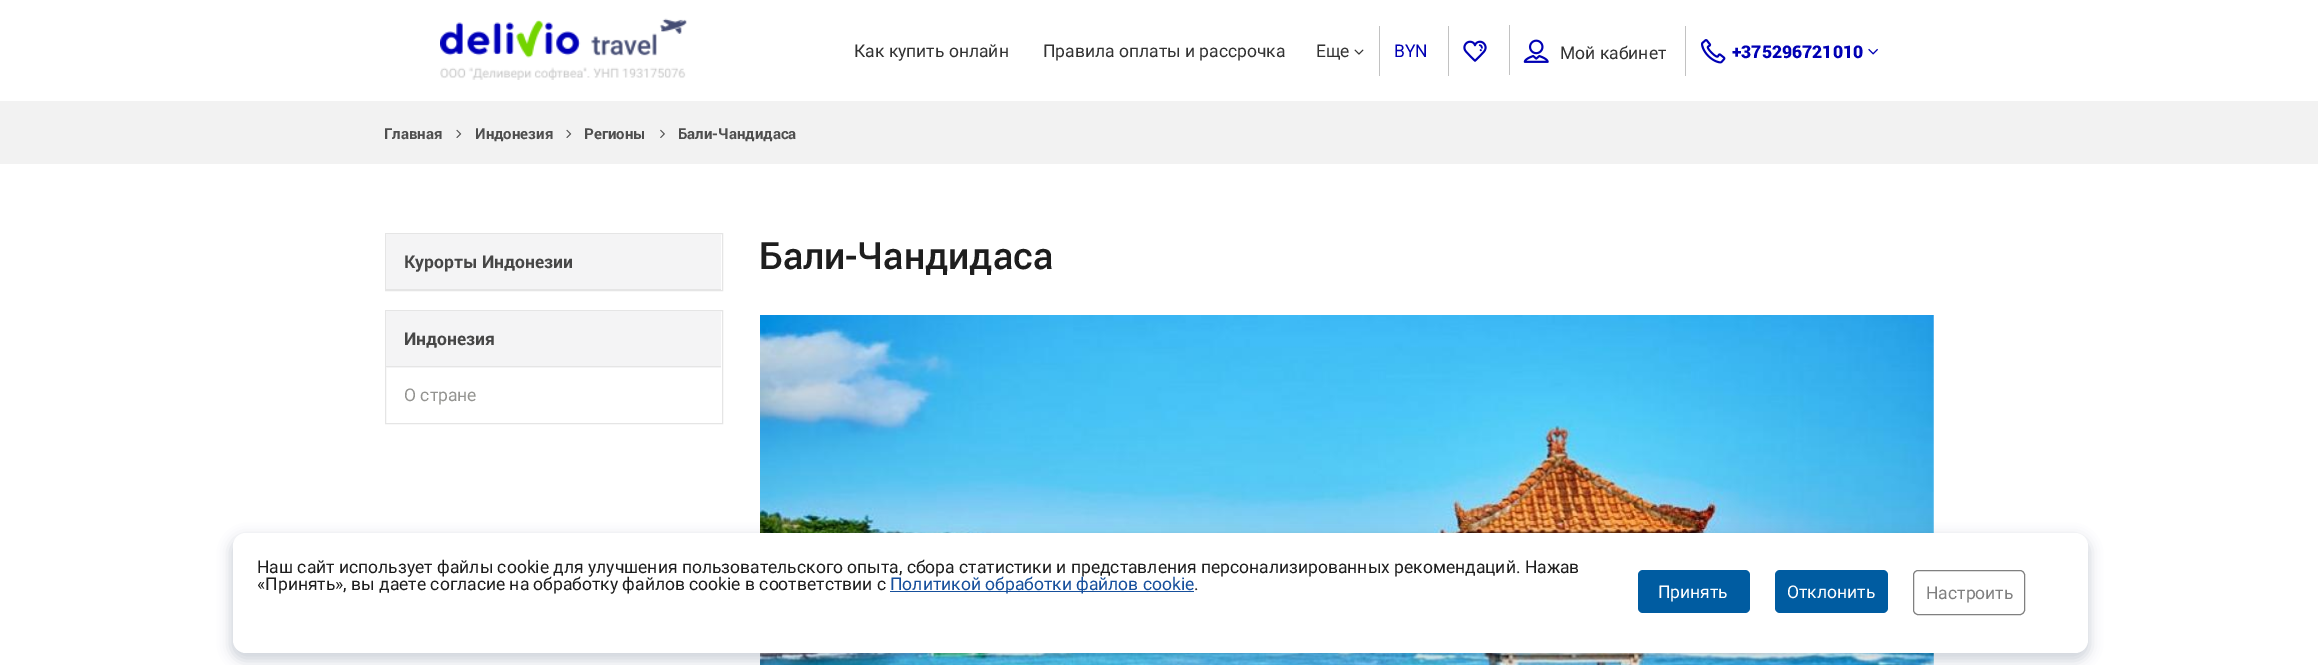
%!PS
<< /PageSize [2318 665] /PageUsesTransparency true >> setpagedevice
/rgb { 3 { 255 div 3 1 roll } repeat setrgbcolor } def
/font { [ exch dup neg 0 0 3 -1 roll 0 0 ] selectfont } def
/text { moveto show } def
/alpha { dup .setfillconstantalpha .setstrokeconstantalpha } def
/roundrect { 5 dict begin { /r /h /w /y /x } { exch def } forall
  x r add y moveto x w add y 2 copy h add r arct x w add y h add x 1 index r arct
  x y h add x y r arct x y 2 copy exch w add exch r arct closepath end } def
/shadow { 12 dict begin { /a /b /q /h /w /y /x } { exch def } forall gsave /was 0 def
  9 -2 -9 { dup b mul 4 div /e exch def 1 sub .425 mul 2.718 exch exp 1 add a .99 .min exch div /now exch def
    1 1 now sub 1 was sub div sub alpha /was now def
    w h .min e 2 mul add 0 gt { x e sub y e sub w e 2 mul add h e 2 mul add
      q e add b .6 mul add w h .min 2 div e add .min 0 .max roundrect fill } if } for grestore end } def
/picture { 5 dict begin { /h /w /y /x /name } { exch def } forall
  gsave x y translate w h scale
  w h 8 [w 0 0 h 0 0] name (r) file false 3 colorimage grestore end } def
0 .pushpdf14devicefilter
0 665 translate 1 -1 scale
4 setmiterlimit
255 255 255 rgb
0 0 2318 665 rectfill
(img_01.rgb) 440 18 247 62 picture
(img_02.rgb) 1354 49 10 6 picture
194 194 194 rgb
1379 26 1 50 rectfill
1448 26 1 50 rectfill
(img_03.rgb) 1463 40 24 22 picture
1509 25 1 50 rectfill
(img_04.rgb) 1523 39 26 24 picture
1685 26 1 50 rectfill
(img_05.rgb) 1701 39 25 25 picture
(img_06.rgb) 1868 48 10 7 picture
242 242 242 rgb
0 101 2318 63 rectfill
(img_07.rgb) 456 129 6 9 picture
(img_07.rgb) 566 129 6 9 picture
(img_08.rgb) 660 129 5 9 picture
229 229 229 rgb
385.5 233.5 337 57 rectstroke
244 244 245 rgb
386 234 335 55 rectfill
229 229 229 rgb
386 289 335 1 rectfill
385.5 310.5 337 113 rectstroke
244 244 245 rgb
386 311 335 57 rectfill
229 229 229 rgb
386 366 335 1 rectfill
(img_09.rgb) 760 315 1174 350 picture
34 60 80 rgb
230 536 1860 125 15 6 0.2 shadow
255 255 255 rgb
233 533 1855 120 13 roundrect fill
22 79 156 rgb
890 591 304 1 rectfill
0 92 161 rgb
1638 570 112 43 5 roundrect fill
1775 570 113 43 5 roundrect fill
128 128 128 rgb
1913.5 570.5 111 44 4.5 roundrect stroke
/Roboto-Regular 17.5 font
51 51 51 rgb
(Как купить онлайн) 854 57 text
(Правила оплаты и рассрочка) 1043 57 text
(Еще) 1316 57 text
0 0 180 rgb
(BYN) 1394 57 text
51 51 51 rgb
(Мой кабинет) 1560 59 text
/Roboto-Black 17.5 font
0 0 180 rgb
(+375296721010) 1732 58 text
/Roboto-Bold 15 font
79 79 79 rgb
(Главная) 384 139 text
(Индонезия) 475 139 text
(Регионы) 584 139 text
(Бали-Чандидаса) 678 139 text
/Roboto-Bold 17.5 font
71 71 71 rgb
(Курорты Индонезии) 404 268 text
(Индонезия) 404 345 text
/Roboto-Regular 17.5 font
148 148 145 rgb
(О стране) 404 401 text
/Roboto-Medium 37.5 font
30 30 30 rgb
(Бали-Чандидаса) 759 269 text
/Roboto-Regular 17.5 font
(Наш сайт использует файлы cookie для улучшения пользовательского опыта, сбора статистики и представления персонализированных рекомендаций. Нажав) 257 573 text
(«Принять», вы даете согласие на обработку файлов cookie в соответствии с) 257 590 text
22 79 156 rgb
(Политикой обработки файлов cookie) 890 590 text
30 30 30 rgb
(.) 1194 590 text
255 255 255 rgb
(Принять) 1658 598 text
(Отклонить) 1787 598 text
128 128 128 rgb
(Настроить) 1926 599 text
.poppdf14devicefilter showpage
